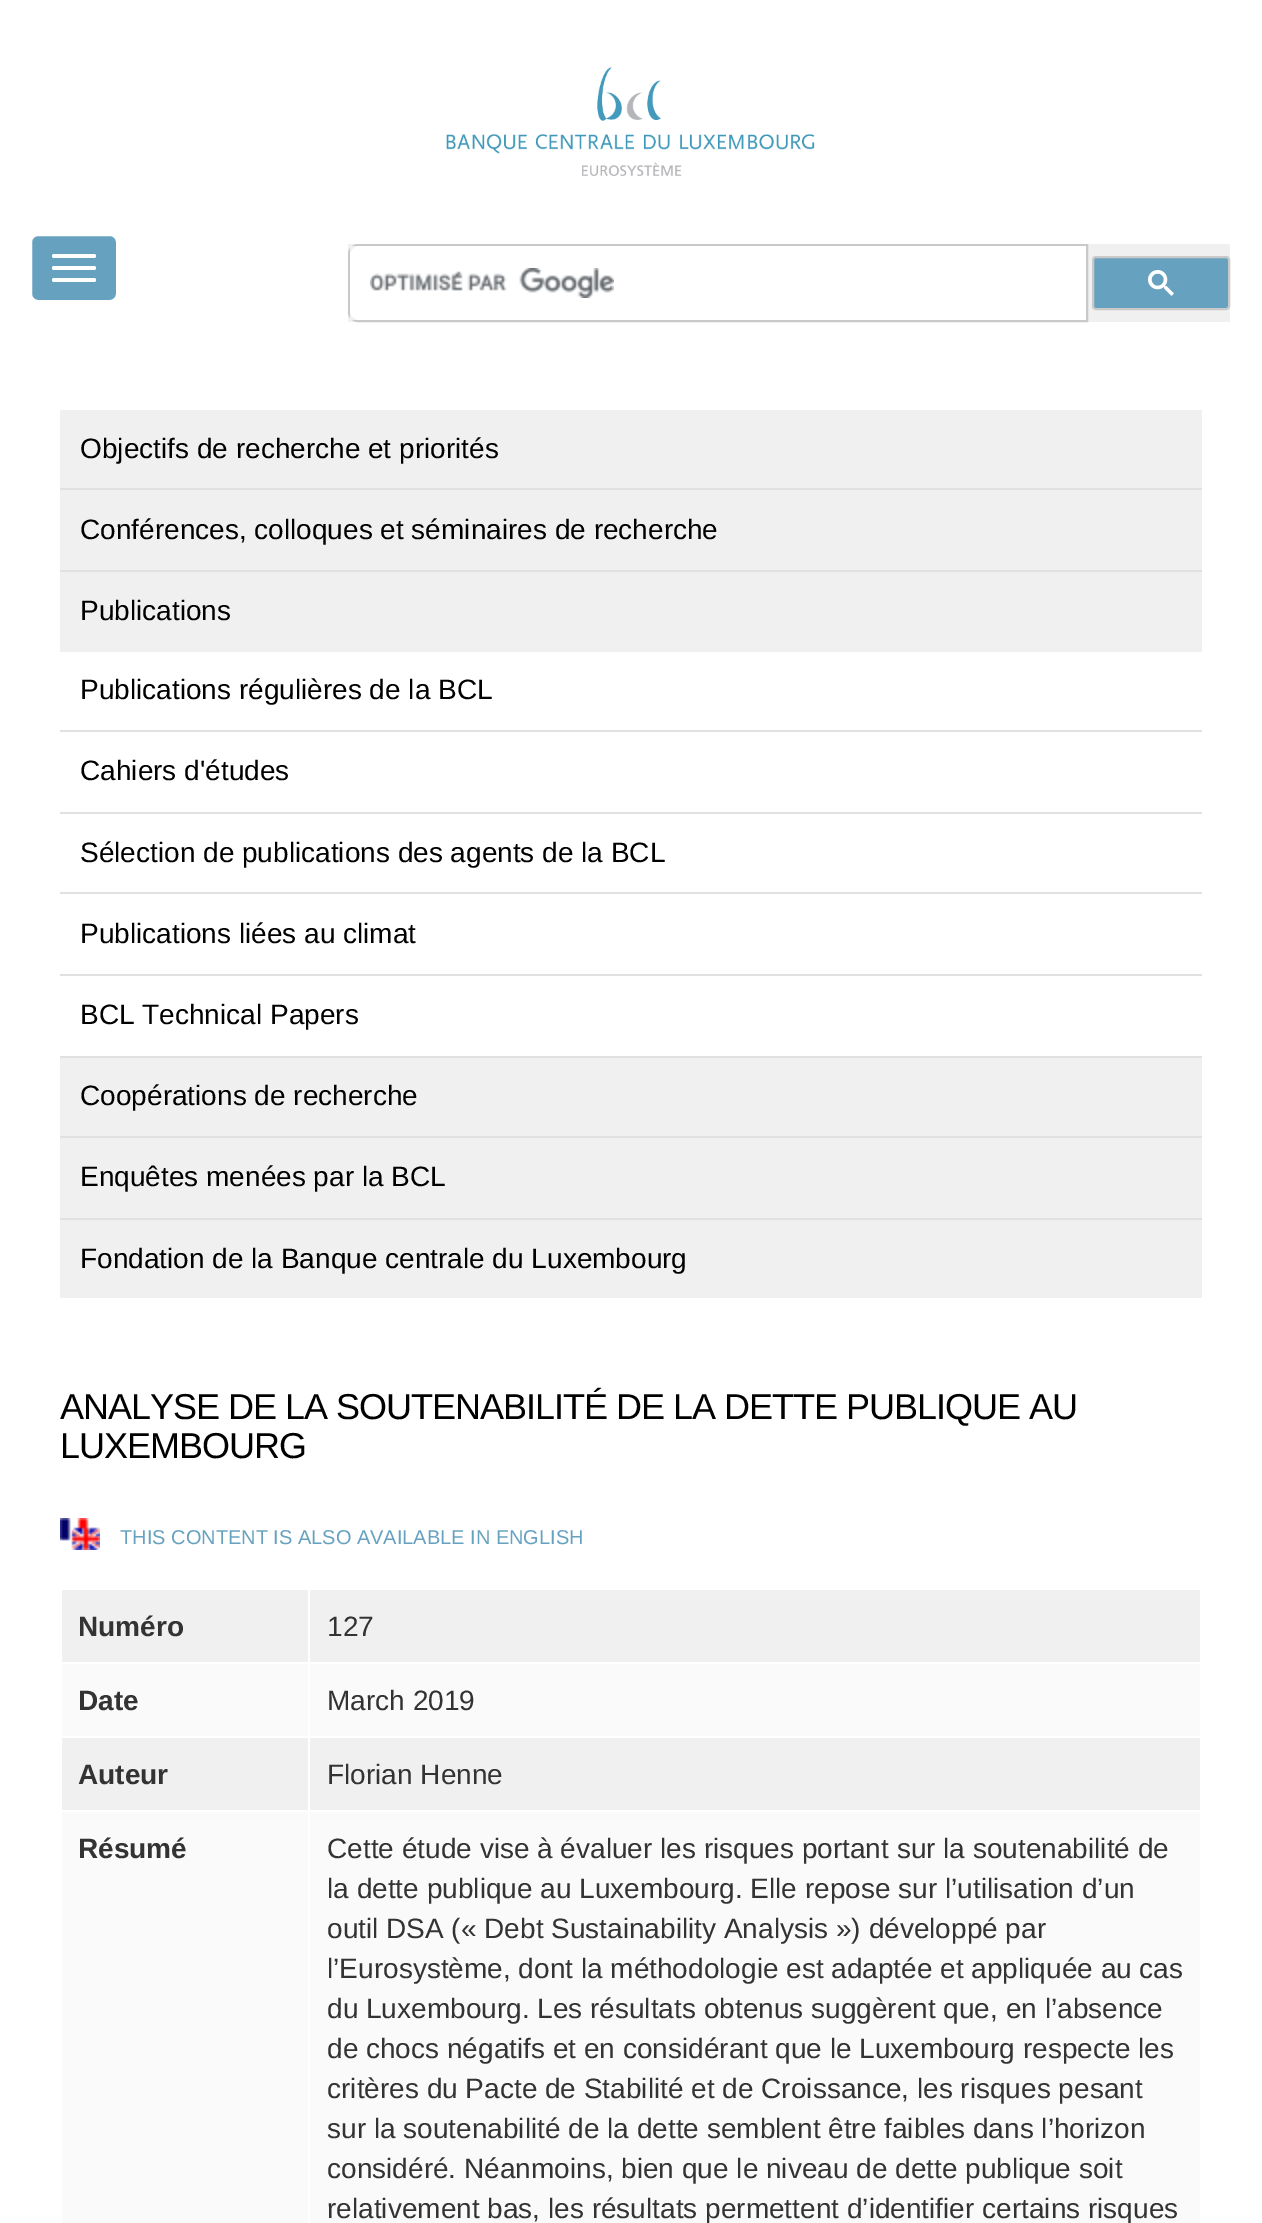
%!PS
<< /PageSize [1262 2223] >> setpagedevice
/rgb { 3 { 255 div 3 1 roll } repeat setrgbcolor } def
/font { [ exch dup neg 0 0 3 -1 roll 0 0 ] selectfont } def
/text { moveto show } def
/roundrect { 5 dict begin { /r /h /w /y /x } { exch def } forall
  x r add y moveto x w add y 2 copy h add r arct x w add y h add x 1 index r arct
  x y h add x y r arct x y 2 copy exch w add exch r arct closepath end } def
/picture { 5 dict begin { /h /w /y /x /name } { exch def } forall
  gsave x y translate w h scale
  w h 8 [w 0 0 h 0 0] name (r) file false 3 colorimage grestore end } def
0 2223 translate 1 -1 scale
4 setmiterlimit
255 255 255 rgb
0 0 1262 2223 rectfill
(img_01.rgb) 446 67 369 109 picture
102 162 192 rgb
31 235 86 66 7 roundrect gsave fill grestore
255 255 255 rgb
2 setlinewidth
stroke
52 254 44 4 2 roundrect fill
52 266 44 4 2 roundrect fill
52 278 44 4 2 roundrect fill
240 240 240 rgb
348 244 882 78 rectfill
201 201 201 rgb
358 245 moveto 729 0 rlineto 0 76 rlineto -729 0 rlineto -5 0 -9 -4 -9 -9 rcurveto 0 -58 rlineto 0 -5 4 -9 9 -9 rcurveto closepath stroke
240 240 240 rgb
350 246 7 74 rectfill
255 255 255 rgb
360 246 moveto 726 0 rlineto 0 74 rlineto -726 0 rlineto -5.5 0 -10 -4.5 -10 -10 rcurveto 0 -54 rlineto 0 -5.5 4.5 -10 10 -10 rcurveto closepath fill
(img_02.rgb) 370 268 244 30 picture
102 162 192 rgb
1093 257 136 52 3 roundrect gsave fill grestore
201 201 201 rgb
stroke
(img_03.rgb) 1148 270 26 26 picture
240 240 240 rgb
60 410 1142 78 rectfill
225 225 225 rgb
60 488 1142 2 rectfill
240 240 240 rgb
60 490 1142 80 rectfill
225 225 225 rgb
60 570 1142 2 rectfill
240 240 240 rgb
60 572 1142 80 rectfill
225 225 225 rgb
60 1056 1142 2 rectfill
60 730 1142 2 rectfill
60 812 1142 2 rectfill
60 892 1142 2 rectfill
60 974 1142 2 rectfill
240 240 240 rgb
60 1058 1142 78 rectfill
225 225 225 rgb
60 1136 1142 2 rectfill
240 240 240 rgb
60 1138 1142 80 rectfill
225 225 225 rgb
60 1218 1142 2 rectfill
240 240 240 rgb
60 1220 1142 78 rectfill
(img_04.rgb) 60 1518 40 32 picture
62 1590 1138 72 rectfill
250 250 250 rgb
62 1664 1138 72 rectfill
240 240 240 rgb
62 1738 1138 72 rectfill
250 250 250 rgb
62 1812 1138 411 rectfill
255 255 255 rgb
308 1588 2 635 rectfill
/LiberationSans-Regular 28 font
0 0 0 rgb
(Objectifs de recherche et priorités) 80 458 text
(Conférences, colloques et séminaires de recherche) 80 539 text
(Publications) 80 620 text
(Publications régulières de la BCL) 80 699 text
(Cahiers d'études) 80 780 text
(Sélection de publications des agents de la BCL) 80 862 text
(Publications liées au climat) 80 943 text
(BCL Technical Papers) 80 1024 text
(Coopérations de recherche) 80 1105 text
(Enquêtes menées par la BCL) 80 1186 text
(Fondation de la Banque centrale du Luxembourg) 80 1268 text
/LiberationSans-Regular 36 font
60 1419 moveto -1 0 (ANALYSE DE LA SOUTENABILITÉ DE LA DETTE PUBLIQUE AU) ashow
60 1458 moveto -1 0 (LUXEMBOURG) ashow
/LiberationSans-Regular 20 font
102 162 192 rgb
(THIS CONTENT IS ALSO AVAILABLE IN ENGLISH) 120 1544 text
/LiberationSans-Bold 28 font
51 51 51 rgb
(Numéro) 78 1636 text
/LiberationSans-Regular 28 font
(127) 327 1636 text
/LiberationSans-Bold 28 font
(Date) 78 1710 text
/LiberationSans-Regular 28 font
(March 2019) 327 1710 text
/LiberationSans-Bold 28 font
(Auteur) 78 1784 text
/LiberationSans-Regular 28 font
(Florian Henne) 327 1784 text
/LiberationSans-Bold 28 font
(Résumé) 78 1858 text
/LiberationSans-Regular 28 font
(Cette étude vise à évaluer les risques portant sur la soutenabilité de) 327 1858 text
(la dette publique au Luxembourg. Elle repose sur l’utilisation d’un) 327 1898 text
(outil DSA \(« Debt Sustainability Analysis »\) développé par) 327 1938 text
(l’Eurosystème, dont la méthodologie est adaptée et appliquée au cas) 327 1978 text
(du Luxembourg. Les résultats obtenus suggèrent que, en l’absence) 327 2018 text
(de chocs négatifs et en considérant que le Luxembourg respecte les) 327 2058 text
(critères du Pacte de Stabilité et de Croissance, les risques pesant) 327 2098 text
(sur la soutenabilité de la dette semblent être faibles dans l’horizon) 327 2138 text
(considéré. Néanmoins, bien que le niveau de dette publique soit) 327 2178 text
(relativement bas, les résultats permettent d’identifier certains risques) 327 2218 text
showpage
